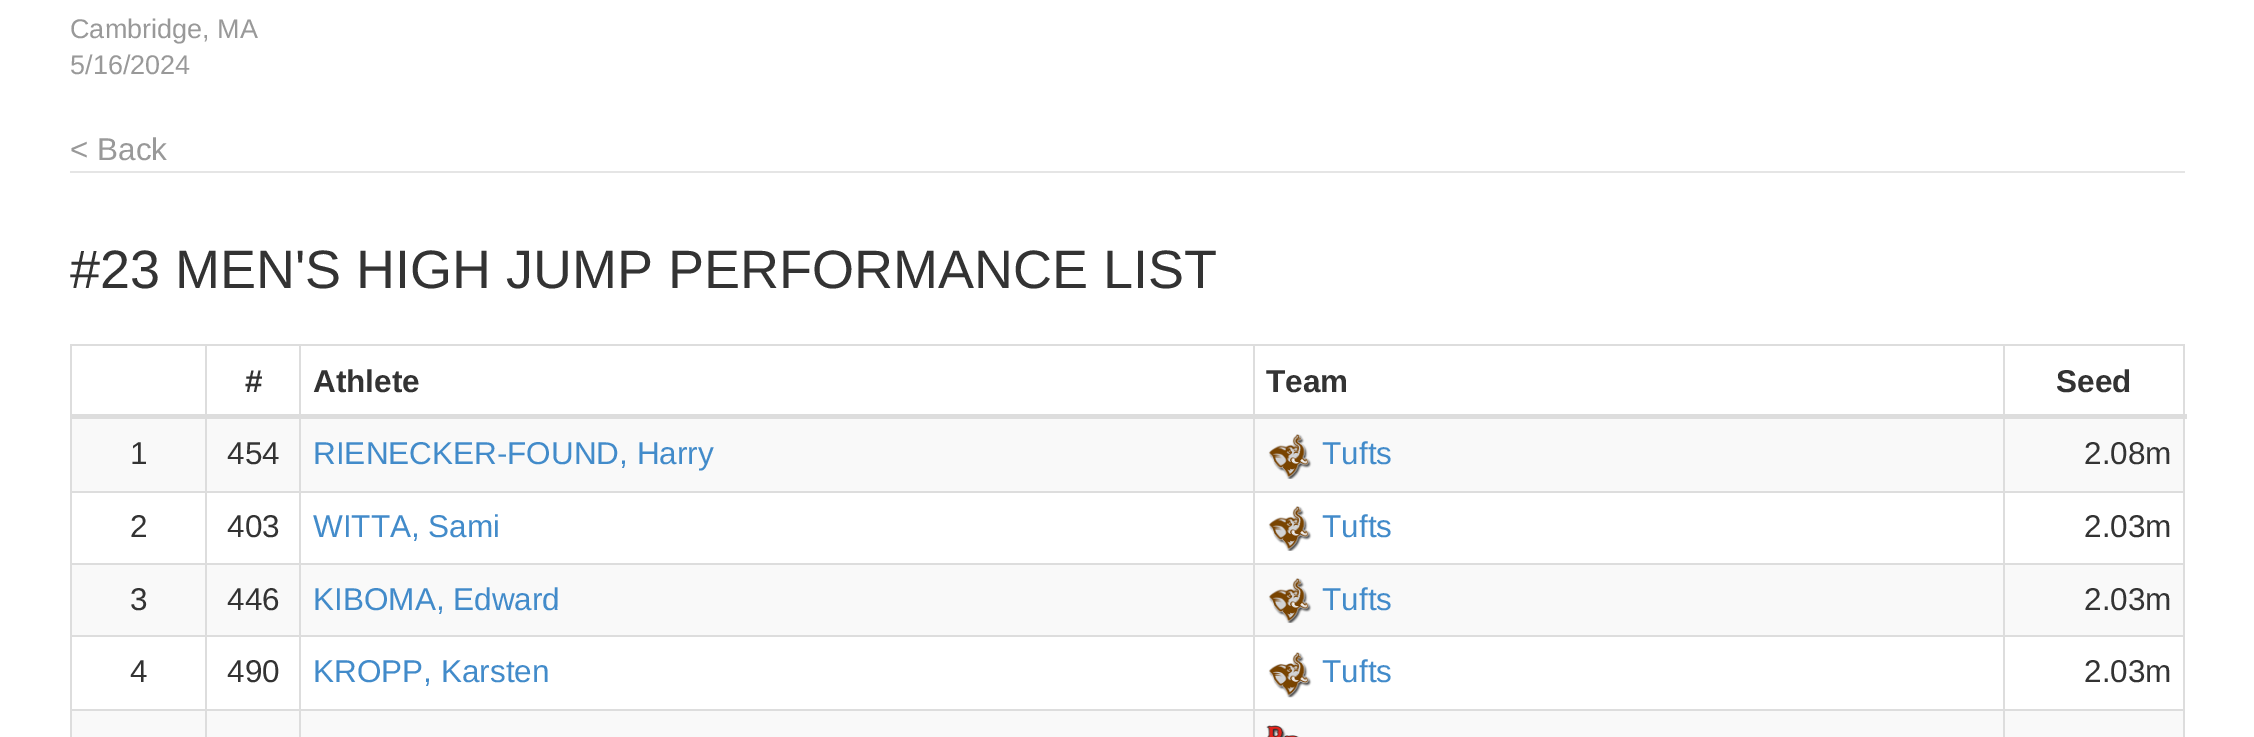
%!PS
<< /PageSize [2254 737] >> setpagedevice
/rgb { 3 { 255 div 3 1 roll } repeat setrgbcolor } def
/font { [ exch dup neg 0 0 3 -1 roll 0 0 ] selectfont } def
/text { moveto show } def
/picture { 5 dict begin { /h /w /y /x /name } { exch def } forall
  gsave x y translate w h scale
  w h 8 [w 0 0 h 0 0] name (r) file false 3 colorimage grestore end } def
0 737 translate 1 -1 scale
4 setmiterlimit
255 255 255 rgb
0 0 2254 737 rectfill
229 229 229 rgb
70 171 2115 2 rectfill
221 221 221 rgb
70 344 2115 2 rectfill
2183 344 2 393 rectfill
70 344 2 393 rectfill
2003 491 182 2 rectfill
2003 563 182 2 rectfill
2003 635 182 2 rectfill
2003 709 182 2 rectfill
2003 709 2 28 rectfill
1253 709 752 2 rectfill
2003 635 2 76 rectfill
1253 635 752 2 rectfill
2003 563 2 74 rectfill
1253 563 752 2 rectfill
2003 491 2 74 rectfill
1253 491 752 2 rectfill
1253 709 2 28 rectfill
299 709 957 2 rectfill
1253 635 2 76 rectfill
299 635 957 2 rectfill
1253 563 2 74 rectfill
299 563 957 2 rectfill
1253 491 2 74 rectfill
299 491 957 2 rectfill
249 249 249 rgb
207 565 1046 70 rectfill
207 711 1046 26 rectfill
221 221 221 rgb
299 709 2 28 rectfill
205 709 97 2 rectfill
299 635 2 76 rectfill
205 635 97 2 rectfill
299 563 2 74 rectfill
205 563 97 2 rectfill
299 491 2 74 rectfill
205 491 97 2 rectfill
205 709 2 28 rectfill
70 709 137 2 rectfill
205 635 2 76 rectfill
70 635 137 2 rectfill
205 563 2 74 rectfill
70 563 137 2 rectfill
205 491 2 74 rectfill
70 491 137 2 rectfill
205 344 2 149 rectfill
249 249 249 rgb
207 419 1046 72 rectfill
221 221 221 rgb
299 344 2 149 rectfill
1253 344 2 149 rectfill
2003 344 2 149 rectfill
70 414 2117 5 rectfill
249 249 249 rgb
72 419 133 72 rectfill
1255 419 748 72 rectfill
(img_01.rgb) 1268 434 44 45 picture
2005 419 178 72 rectfill
(img_02.rgb) 1268 506 44 45 picture
72 565 133 70 rectfill
1255 565 748 70 rectfill
(img_03.rgb) 1268 578 44 45 picture
2005 565 178 70 rectfill
(img_04.rgb) 1268 652 44 46 picture
72 711 133 26 rectfill
1255 711 748 26 rectfill
(img_05.rgb) 1266 725 33 12 picture
2005 711 178 26 rectfill
/LiberationSans-Regular 27 font
153 153 153 rgb
(Cambridge, MA) 70 38 text
(5/16/2024) 70 74 text
/LiberationSans-Regular 31.5 font
(< Back) 70 160 text
/LiberationSans-Regular 54 font
51 51 51 rgb
(#23 MEN'S HIGH JUMP PERFORMANCE LIST) 70 288 text
/LiberationSans-Bold 31.5 font
(#) 245 392 text
(Athlete) 313 392 text
(Team) 1266 392 text
(Seed) 2056 392 text
/LiberationSans-Regular 31.5 font
(1) 130 464 text
(454) 227 464 text
66 139 202 rgb
(RIENECKER-FOUND, Harry) 313 464 text
(Tufts) 1322 464 text
51 51 51 rgb
(2.08m) 2084 464 text
(2) 130 537 text
(403) 227 537 text
66 139 202 rgb
(WITTA, Sami) 313 537 text
(Tufts) 1322 537 text
51 51 51 rgb
(2.03m) 2084 537 text
(3) 130 610 text
(446) 227 610 text
66 139 202 rgb
(KIBOMA, Edward) 313 610 text
(Tufts) 1322 610 text
51 51 51 rgb
(2.03m) 2084 610 text
(4) 130 682 text
(490) 227 682 text
66 139 202 rgb
(KROPP, Karsten) 313 682 text
(Tufts) 1322 682 text
51 51 51 rgb
(2.03m) 2084 682 text
showpage
